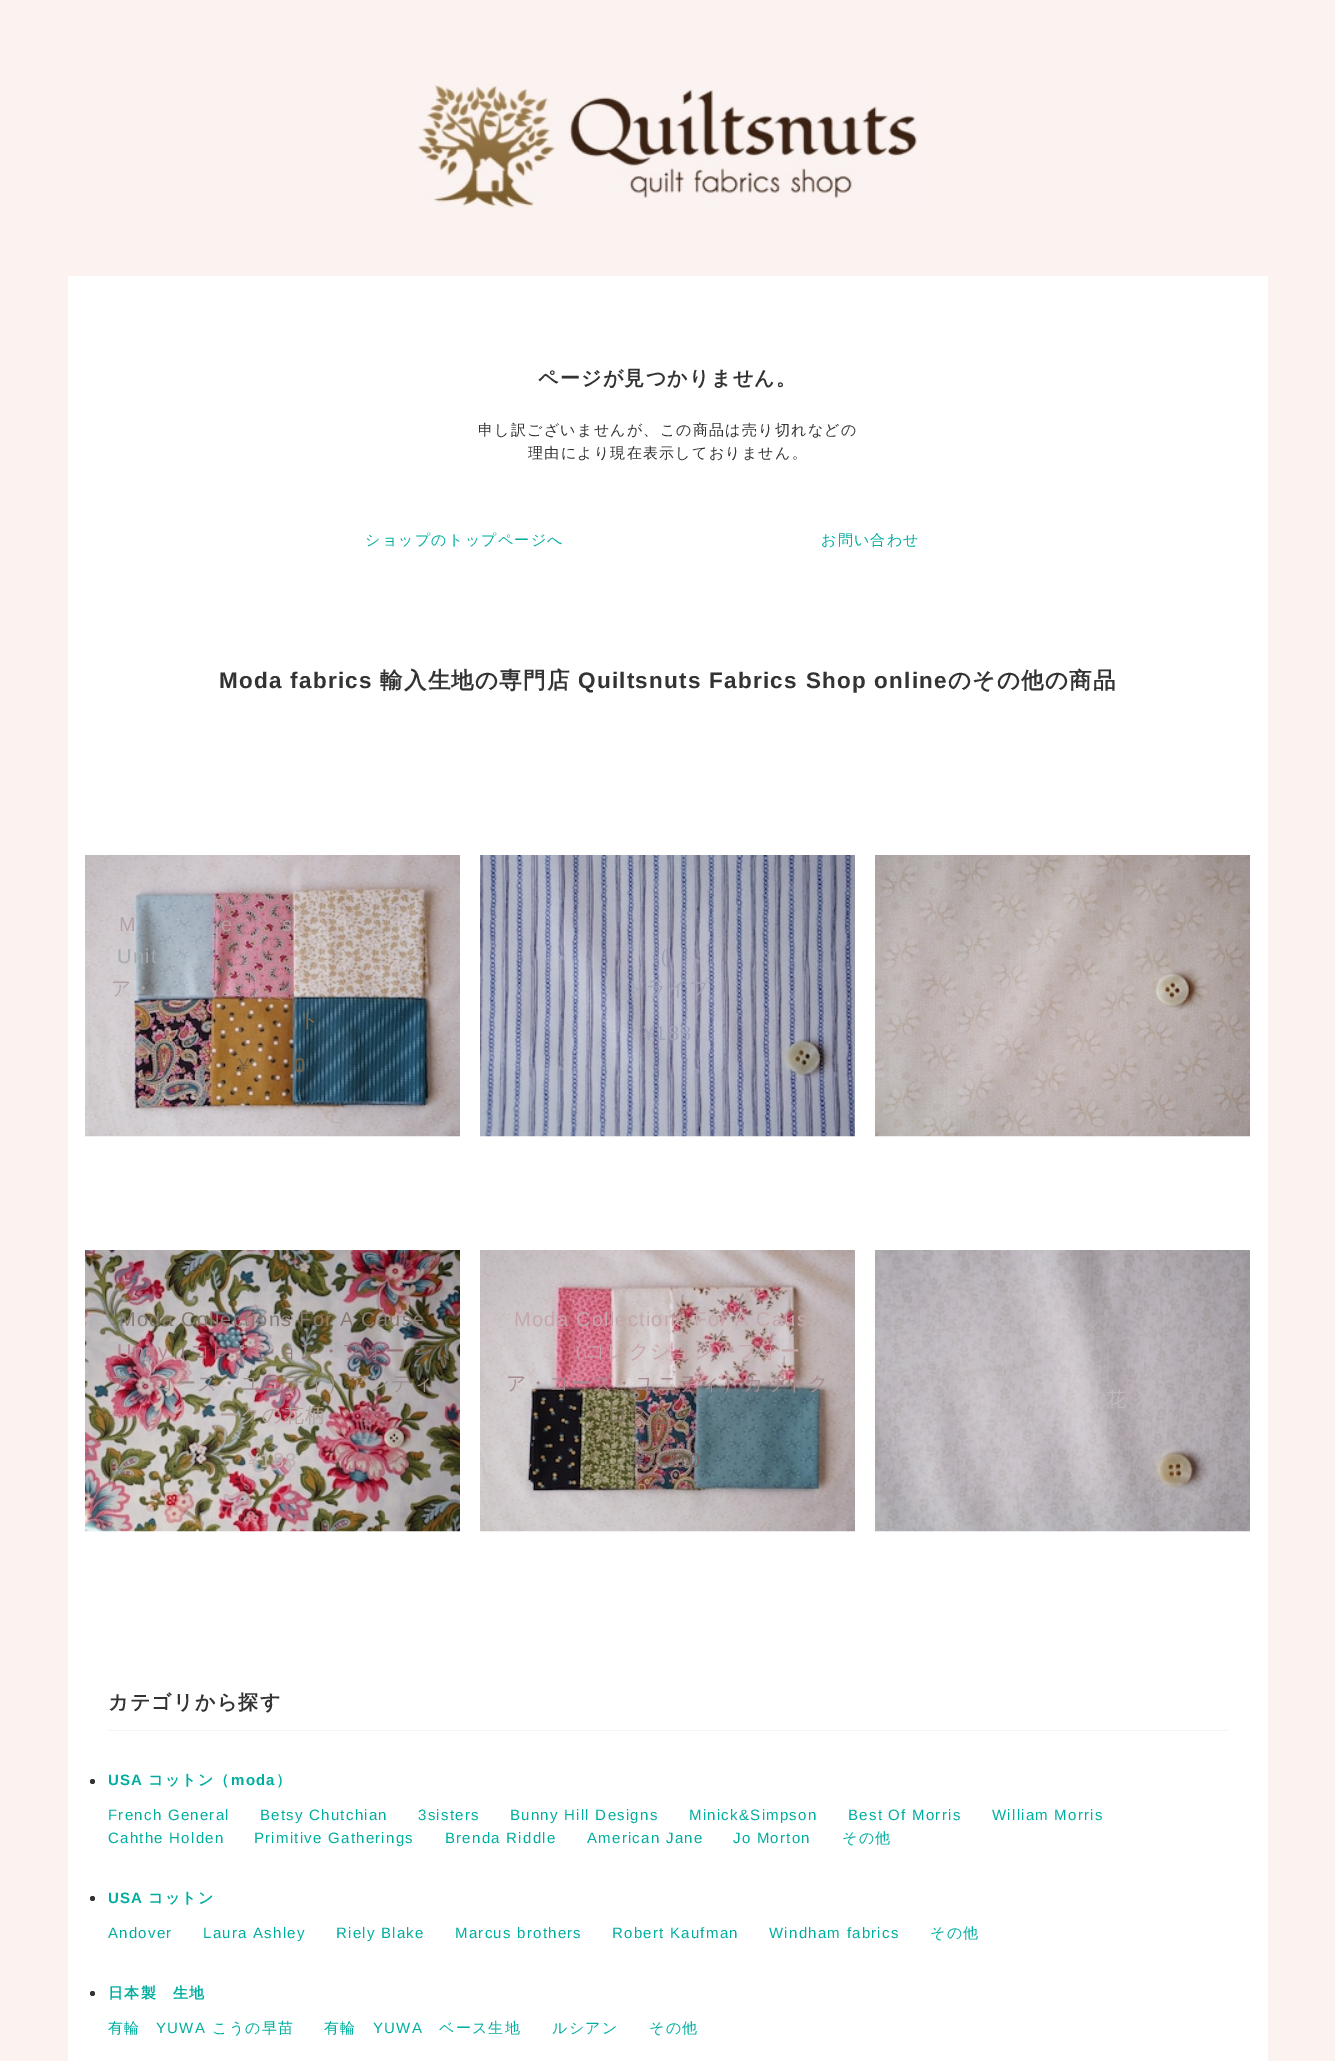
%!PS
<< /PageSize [1335 2061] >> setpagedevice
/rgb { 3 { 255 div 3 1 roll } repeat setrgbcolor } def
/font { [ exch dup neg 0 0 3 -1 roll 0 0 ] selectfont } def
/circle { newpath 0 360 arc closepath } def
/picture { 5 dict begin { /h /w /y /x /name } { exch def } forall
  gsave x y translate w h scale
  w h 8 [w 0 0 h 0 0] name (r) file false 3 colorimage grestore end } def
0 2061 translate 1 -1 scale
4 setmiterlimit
252 242 240 rgb
0 0 1335 2061 rectfill
(img_01.rgb) 415 83 502 125 picture
255 255 255 rgb
68 276 1200 1785 rectfill
(img_02.rgb) 85 855 375 282 picture
(img_03.rgb) 480 855 375 282 picture
(img_04.rgb) 875 855 375 282 picture
(img_05.rgb) 85 1250 375 282 picture
(img_06.rgb) 480 1250 375 282 picture
(img_07.rgb) 875 1250 375 282 picture
245 245 245 rgb
108 1730 1120 1 rectfill
51 51 51 rgb
92.5 1781.5 2.5 circle fill
92.5 1898.5 2.5 circle fill
92.5 1993.5 2.5 circle fill
/WenQuanYiZenHei-Bold 20 font
538 385 moveto 1.25 0 (ページが見つかりません。) ashow
/WenQuanYiZenHei-Medium 15 font
478 435 moveto 1.25 0 (申し訳ございませんが、この商品は売り切れなどの) ashow
528 458 moveto 1.25 0 (理由により現在表示しておりません。) ashow
0 174 159 rgb
365 545 moveto 1.25 0 (ショップのトップページへ) ashow
821 545 moveto 1.25 0 (お問い合わせ) ashow
/LiberationSans-Bold 22.5 font
51 51 51 rgb
219 688 moveto 1.25 0 (Moda fabrics) ashow
/WenQuanYiZenHei-Bold 22.5 font
380 688 moveto 1.25 0 (輸入生地の専門店) ashow
/LiberationSans-Bold 22.5 font
578 688 moveto 1.25 0 (Quiltsnuts Fabrics Shop online) ashow
/WenQuanYiZenHei-Bold 22.5 font
948 688 moveto 1.25 0 (のその他の商品) ashow
/LiberationSans-Regular 20 font
180 161 165 rgb
119 931 moveto 1.25 0 (M) ashow
221 931 moveto 1.25 0 (e) ashow
282 931 moveto 1.25 0 (s) ashow
166 171 177 rgb
117 963 moveto 1.25 0 (Unit) ashow
/WenQuanYiZenHei-Medium 20 font
180 161 165 rgb
111 995 moveto 1.25 0 (ア・) ashow
143 105 59 rgb
299 1027 moveto 1.25 0 (ト) ashow
/LiberationSans-Regular 20 font
126 98 63 rgb
238 1072 moveto 1.25 0 (¥) ashow
294 1072 moveto 1.25 0 (0) ashow
/WenQuanYiZenHei-Medium 20 font
154 157 177 rgb
649 963 moveto 1.25 0 (（) ashow
161 163 184 rgb
624 995 moveto 1.25 0 (トライプ) ashow
/LiberationSans-Regular 20 font
643 1040 moveto 1.25 0 (¥188) ashow
136 122 112 rgb
119 1326 moveto 1.25 0 (Moda Collections For A Cause) ashow
183 136 148 rgb
117 1358 moveto 1.25 0 (Unity) ashow
/WenQuanYiZenHei-Medium 20 font
152 119 124 rgb
169 1358 moveto 1.25 0 (（コレクション・フォー・) ashow
159 143 139 rgb
111 1390 moveto 1.25 0 (ア・コーズ・ユニティ）アンティ) ashow
179 159 155 rgb
219 1422 moveto 1.25 0 (ークの花柄) ashow
/LiberationSans-Regular 20 font
190 174 173 rgb
248 1467 moveto 1.25 0 (¥188) ashow
198 166 171 rgb
514 1326 moveto 1.25 0 (Moda Collections For A Caus) ashow
/WenQuanYiZenHei-Medium 20 font
564 1358 moveto 1.25 0 (（コレクション・フォー) ashow
168 139 144 rgb
506 1390 moveto 1.25 0 (ア・コーズ・ユニティ）カットク) ashow
126 111 96 rgb
607 1422 moveto 1.25 0 (ロスセッ) ashow
/LiberationSans-Regular 20 font
120 103 103 rgb
633 1467 moveto 1.25 0 (¥2,310) ashow
/WenQuanYiZenHei-Medium 20 font
192 185 190 rgb
1106 1406 moveto 1.25 0 (花) ashow
/WenQuanYiZenHei-Bold 20 font
51 51 51 rgb
108 1709 moveto 1.25 0 (カテゴリから探す) ashow
/LiberationSans-Bold 15 font
0 174 159 rgb
108 1785 moveto 1.25 0 (USA) ashow
/WenQuanYiZenHei-Bold 15 font
148 1785 moveto 1.25 0 (コットン（) ashow
/LiberationSans-Bold 15 font
231 1785 moveto 1.25 0 (moda) ashow
/WenQuanYiZenHei-Bold 15 font
276 1785 moveto 1.25 0 (）) ashow
/LiberationSans-Regular 15 font
108 1820 moveto 1.25 0 (French General) ashow
260 1820 moveto 1.25 0 (Betsy Chutchian) ashow
418 1820 moveto 1.25 0 (3sisters) ashow
510 1820 moveto 1.25 0 (Bunny Hill Designs) ashow
689 1820 moveto 1.25 0 (Minick&Simpson) ashow
848 1820 moveto 1.25 0 (Best Of Morris) ashow
992 1820 moveto 1.25 0 (William Morris) ashow
108 1843 moveto 1.25 0 (Cahthe Holden) ashow
254 1843 moveto 1.25 0 (Primitive Gatherings) ashow
445 1843 moveto 1.25 0 (Brenda Riddle) ashow
587 1843 moveto 1.25 0 (American Jane) ashow
733 1843 moveto 1.25 0 (Jo Morton) ashow
/WenQuanYiZenHei-Medium 15 font
842 1843 moveto 1.25 0 (その他) ashow
/LiberationSans-Bold 15 font
108 1903 moveto 1.25 0 (USA) ashow
/WenQuanYiZenHei-Bold 15 font
148 1903 moveto 1.25 0 (コットン) ashow
/LiberationSans-Regular 15 font
108 1938 moveto 1.25 0 (Andover) ashow
203 1938 moveto 1.25 0 (Laura Ashley) ashow
336 1938 moveto 1.25 0 (Riely Blake) ashow
455 1938 moveto 1.25 0 (Marcus brothers) ashow
612 1938 moveto 1.25 0 (Robert Kaufman) ashow
769 1938 moveto 1.25 0 (Windham fabrics) ashow
/WenQuanYiZenHei-Medium 15 font
930 1938 moveto 1.25 0 (その他) ashow
/WenQuanYiZenHei-Bold 15 font
108 1998 moveto 1.25 0 (日本製　生地) ashow
/WenQuanYiZenHei-Medium 15 font
108 2033 moveto 1.25 0 (有輪) ashow
/LiberationSans-Regular 15 font
156 2033 moveto 1.25 0 (YUWA) ashow
/WenQuanYiZenHei-Medium 15 font
212 2033 moveto 1.25 0 (こうの早苗) ashow
324 2033 moveto 1.25 0 (有輪) ashow
/LiberationSans-Regular 15 font
373 2033 moveto 1.25 0 (YUWA) ashow
/WenQuanYiZenHei-Medium 15 font
439 2033 moveto 1.25 0 (ベース生地) ashow
552 2033 moveto 1.25 0 (ルシアン) ashow
649 2033 moveto 1.25 0 (その他) ashow
showpage
